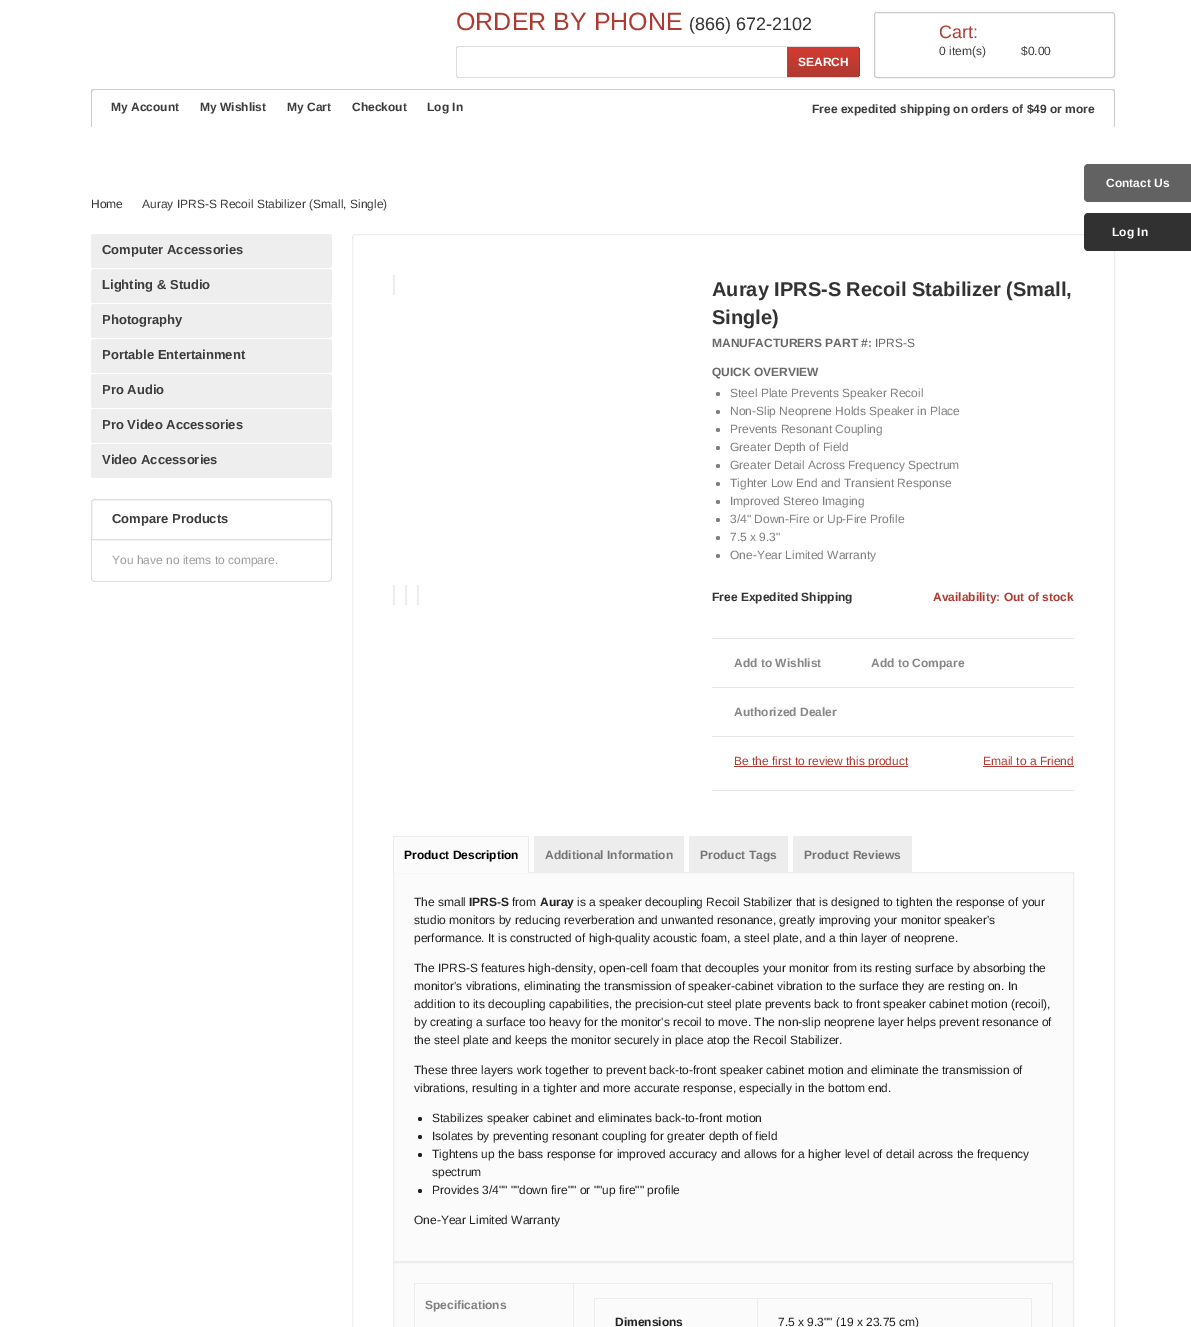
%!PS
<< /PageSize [1191 1327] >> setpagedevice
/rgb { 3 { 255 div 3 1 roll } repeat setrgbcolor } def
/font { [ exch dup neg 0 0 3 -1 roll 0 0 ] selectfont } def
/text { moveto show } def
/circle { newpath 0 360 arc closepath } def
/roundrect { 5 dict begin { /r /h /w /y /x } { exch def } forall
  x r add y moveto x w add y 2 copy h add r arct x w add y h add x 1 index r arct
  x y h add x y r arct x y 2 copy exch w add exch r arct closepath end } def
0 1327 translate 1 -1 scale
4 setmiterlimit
255 255 255 rgb
0 0 1191 1327 rectfill
222 221 221 rgb
459 46 moveto 328 0 rlineto 0 32 rlineto -328 0 rlineto -2 0 -3 -1 -3 -3 rcurveto 0 -26 rlineto 0 -2 1 -3 3 -3 rcurveto closepath 459 47 moveto 328 0 rlineto 0 30 rlineto -328 0 rlineto -1 0 -2 -1 -2 -2 rcurveto 0 -26 rlineto 0 -1 1 -2 2 -2 rcurveto closepath eofill
787 46 72 1 rectfill
787 77 72 1 rectfill
gsave
787 47 moveto 69 0 rlineto 2 0 4 2 4 4 rcurveto 0 22 rlineto 0 2 -2 4 -4 4 rcurveto -69 0 rlineto closepath clip newpath
gsave 787 47 moveto 73 0 rlineto 0 1 rlineto -73 0 rlineto closepath clip newpath
<< /ShadingType 2 /ColorSpace /DeviceRGB /Coords [788 20 788 48] /Extend [true true] /Function << /FunctionType 2 /Domain [0 1] /C0 [0.824 0.227 0.188] /C1 [0.69 0.227 0.196] /N 1 >> >> shfill grestore
gsave 788 48 moveto 72 0 rlineto 0 28 rlineto -72 0 rlineto closepath clip newpath
<< /ShadingType 2 /ColorSpace /DeviceRGB /Coords [788 48 788 76] /Extend [true true] /Function << /FunctionType 2 /Domain [0 1] /C0 [0.824 0.227 0.188] /C1 [0.69 0.227 0.196] /N 1 >> >> shfill grestore
gsave 787 76 moveto 73 0 rlineto 0 1 rlineto -73 0 rlineto closepath clip newpath
<< /ShadingType 2 /ColorSpace /DeviceRGB /Coords [788 76 788 104] /Extend [true true] /Function << /FunctionType 2 /Domain [0 1] /C0 [0.824 0.227 0.188] /C1 [0.69 0.227 0.196] /N 1 >> >> shfill grestore
grestore
210 58 48 rgb
787 47 moveto 1 1 rlineto 8 0 69 -1 70 1 rcurveto 1 -1 rlineto -3 -1 rlineto closepath fill
170 51 43 rgb
860 73 moveto 0 -22 rlineto 0 -1 -0.5 -2 -1 -3 rcurveto -1 1 rlineto 1 0 1 1 1 2 rcurveto 0 22 rlineto 0 1 0 2 -1 2 rcurveto 1 1 rlineto 0.5 -1 1 -2 1 -3 rcurveto closepath fill
176 58 50 rgb
856 77 moveto 3 -1 rlineto -1 -1 rlineto -1 2 -62 1 -70 1 rcurveto -1 1 rlineto closepath fill
210 58 48 rgb
787 47 moveto 0 30 rlineto 1 -1 rlineto 0 -28 rlineto closepath fill
205 203 203 rgb
874.5 12.5 240 65 2.5 roundrect stroke
94 89 moveto 1018 0 rlineto 2 0 3 1 3 3 rcurveto 0 35 rlineto -1024 0 rlineto 0 -35 rlineto 0 -2 1 -3 3 -3 rcurveto closepath 94 90 moveto 1018 0 rlineto 1 0 2 1 2 2 rcurveto 0 35 rlineto -1022 0 rlineto 0 -35 rlineto 0 -1 1 -2 2 -2 rcurveto closepath eofill
238 238 238 rgb
91 234 241 34 3 roundrect fill
94 234 moveto 235 0 rlineto 2 0 3 1 3 3 rcurveto 0 28 rlineto 0 2 -1 3 -3 3 rcurveto -235 0 rlineto -2 0 -3 -1 -3 -3 rcurveto 0 -28 rlineto 0 -2 1 -3 3 -3 rcurveto closepath 94 234 moveto 235 0 rlineto 1 0 2 1 2 3 rcurveto 0 28 rlineto 0 1 -1 2 -2 2 rcurveto -235 0 rlineto -2 0 -3 -1 -3 -2 rcurveto 0 -28 rlineto 0 -2 1 -3 3 -3 rcurveto closepath eofill
91 269 241 34 3 roundrect fill
94 269 moveto 235 0 rlineto 2 0 3 1 3 3 rcurveto 0 28 rlineto 0 2 -1 3 -3 3 rcurveto -235 0 rlineto -2 0 -3 -1 -3 -3 rcurveto 0 -28 rlineto 0 -2 1 -3 3 -3 rcurveto closepath 94 269 moveto 235 0 rlineto 1 0 2 1 2 3 rcurveto 0 28 rlineto 0 1 -1 2 -2 2 rcurveto -235 0 rlineto -2 0 -3 -1 -3 -2 rcurveto 0 -28 rlineto 0 -2 1 -3 3 -3 rcurveto closepath eofill
91 304 241 34 3 roundrect fill
94 304 moveto 235 0 rlineto 2 0 3 1 3 3 rcurveto 0 28 rlineto 0 2 -1 3 -3 3 rcurveto -235 0 rlineto -2 0 -3 -1 -3 -3 rcurveto 0 -28 rlineto 0 -2 1 -3 3 -3 rcurveto closepath 94 304 moveto 235 0 rlineto 1 0 2 1 2 3 rcurveto 0 28 rlineto 0 1 -1 2 -2 2 rcurveto -235 0 rlineto -2 0 -3 -1 -3 -2 rcurveto 0 -28 rlineto 0 -2 1 -3 3 -3 rcurveto closepath eofill
91 339 241 34 3 roundrect fill
94 339 moveto 235 0 rlineto 2 0 3 1 3 3 rcurveto 0 28 rlineto 0 2 -1 3 -3 3 rcurveto -235 0 rlineto -2 0 -3 -1 -3 -3 rcurveto 0 -28 rlineto 0 -2 1 -3 3 -3 rcurveto closepath 94 339 moveto 235 0 rlineto 1 0 2 1 2 3 rcurveto 0 28 rlineto 0 1 -1 2 -2 2 rcurveto -235 0 rlineto -2 0 -3 -1 -3 -2 rcurveto 0 -28 rlineto 0 -2 1 -3 3 -3 rcurveto closepath eofill
91 374 241 34 3 roundrect fill
94 374 moveto 235 0 rlineto 2 0 3 1 3 3 rcurveto 0 28 rlineto 0 2 -1 3 -3 3 rcurveto -235 0 rlineto -2 0 -3 -1 -3 -3 rcurveto 0 -28 rlineto 0 -2 1 -3 3 -3 rcurveto closepath 94 374 moveto 235 0 rlineto 1 0 2 1 2 3 rcurveto 0 28 rlineto 0 1 -1 2 -2 2 rcurveto -235 0 rlineto -2 0 -3 -1 -3 -2 rcurveto 0 -28 rlineto 0 -2 1 -3 3 -3 rcurveto closepath eofill
91 409 241 34 3 roundrect fill
94 409 moveto 235 0 rlineto 2 0 3 1 3 3 rcurveto 0 28 rlineto 0 2 -1 3 -3 3 rcurveto -235 0 rlineto -2 0 -3 -1 -3 -3 rcurveto 0 -28 rlineto 0 -2 1 -3 3 -3 rcurveto closepath 94 409 moveto 235 0 rlineto 1 0 2 1 2 3 rcurveto 0 28 rlineto 0 1 -1 2 -2 2 rcurveto -235 0 rlineto -2 0 -3 -1 -3 -2 rcurveto 0 -28 rlineto 0 -2 1 -3 3 -3 rcurveto closepath eofill
91 444 241 34 3 roundrect fill
94 444 moveto 235 0 rlineto 2 0 3 1 3 3 rcurveto 0 28 rlineto 0 2 -1 3 -3 3 rcurveto -235 0 rlineto -2 0 -3 -1 -3 -3 rcurveto 0 -28 rlineto 0 -2 1 -3 3 -3 rcurveto closepath 94 444 moveto 235 0 rlineto 1 0 2 1 2 3 rcurveto 0 28 rlineto 0 1 -1 2 -2 2 rcurveto -235 0 rlineto -2 0 -3 -1 -3 -2 rcurveto 0 -28 rlineto 0 -2 1 -3 3 -3 rcurveto closepath eofill
222 221 221 rgb
95 499.5 moveto 233 0 rlineto 2 0 3.5 1.5 3.5 3.5 rcurveto 0 36.5 rlineto -240 0 rlineto 0 -36.5 rlineto 0 -2 1.5 -3.5 3.5 -3.5 rcurveto closepath stroke
91 540 moveto 241 0 rlineto 0 38 rlineto 0 2 -2 4 -4 4 rcurveto -233 0 rlineto -2 0 -4 -2 -4 -4 rcurveto closepath 92 540 moveto 239 0 rlineto 0 38 rlineto 0 2 -1 3 -3 3 rcurveto -233 0 rlineto -2 0 -3 -1 -3 -3 rcurveto closepath eofill
237 237 237 rgb
352.5 234.5 762 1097 3.5 roundrect stroke
393 275 2 20 rectfill
393 585 2 20 rectfill
405 585 2 20 rectfill
417 585 2 20 rectfill
127 127 127 rgb
718 394 2 circle fill
718 412 2 circle fill
718 430 2 circle fill
718 448 2 circle fill
718 466 2 circle fill
718 484 2 circle fill
718 502 2 circle fill
718 520 2 circle fill
718 538 2 circle fill
718 556 2 circle fill
230 230 230 rgb
712 638 362 1 rectfill
712 687 362 1 rectfill
712 736 362 1 rectfill
712 790 362 1 rectfill
175 58 50 rgb
734 766 174 1 rectfill
983 766 91 1 rectfill
251 251 251 rgb
393.5 872.5 moveto 680 0 rlineto 0 387.5 rlineto 0 1 -0.5 1.5 -1.5 1.5 rcurveto -677 0 rlineto -1 0 -1.5 -0.5 -1.5 -1.5 rcurveto closepath gsave fill grestore
237 237 237 rgb
stroke
251 251 251 rgb
394 837 134 36 rectfill
237 237 237 rgb
393 836 136 1 rectfill
528 836 1 37 rectfill
393 836 1 37 rectfill
535 837 148 35 rectfill
534 836 150 1 rectfill
683 836 1 37 rectfill
534 836 1 37 rectfill
690 837 97 35 rectfill
689 836 99 1 rectfill
787 836 1 37 rectfill
689 836 1 37 rectfill
794 837 117 35 rectfill
793 836 119 1 rectfill
911 836 1 37 rectfill
793 836 1 37 rectfill
34 34 34 rgb
420 1119 2 circle fill
420 1137 2 circle fill
420 1155 2 circle fill
420 1191 2 circle fill
251 251 251 rgb
393.5 1262.5 moveto 680 0 rlineto 0 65 rlineto -680 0 rlineto closepath gsave fill grestore
237 237 237 rgb
stroke
236 236 236 rgb
573 1283 480 1 rectfill
573 1283 1 44 rectfill
414 1283 160 1 rectfill
414 1283 1 44 rectfill
1052 1283 1 44 rectfill
757 1298 275 1 rectfill
757 1298 1 29 rectfill
594 1298 164 1 rectfill
594 1298 1 29 rectfill
1031 1298 1 29 rectfill
98 98 98 rgb
1088 164 moveto 103 0 rlineto 0 38 rlineto -103 0 rlineto -2 0 -4 -2 -4 -4 rcurveto 0 -30 rlineto 0 -2 2 -4 4 -4 rcurveto closepath fill
49 49 49 rgb
1088 213 moveto 103 0 rlineto 0 38 rlineto -103 0 rlineto -2 0 -4 -2 -4 -4 rcurveto 0 -30 rlineto 0 -2 2 -4 4 -4 rcurveto closepath fill
/LiberationSans-Regular 25 font
175 58 50 rgb
(ORDER BY PHONE) 456 30 text
/LiberationSans-Regular 18 font
51 51 51 rgb
(\(866\) 672-2102) 689 30 text
/LiberationSans-Bold 12 font
255 255 255 rgb
(SEARCH) 798 66 text
/LiberationSans-Regular 18 font
175 58 50 rgb
(Cart:) 939 38 text
/LiberationSans-Regular 12 font
60 60 60 rgb
(0 item\(s\)) 939 55 text
($0.00) 1021 55 text
/LiberationSans-Bold 12 font
(My Account) 111 111 text
(My Wishlist) 200 111 text
(My Cart) 287 111 text
(Checkout) 352 111 text
(Log In) 427 111 text
(Free expedited shipping on orders of $49 or more) 812 113 text
/LiberationSans-Regular 12 font
51 51 51 rgb
(Home) 91 208 text
60 60 60 rgb
(Auray IPRS-S Recoil Stabilizer \(Small, Single\)) 142 208 text
/LiberationSans-Bold 13 font
(Computer Accessories) 102 254 text
(Lighting & Studio) 102 289 text
(Photography) 102 324 text
(Portable Entertainment) 102 359 text
(Pro Audio) 102 394 text
(Pro Video Accessories) 102 429 text
(Video Accessories) 102 464 text
(Compare Products) 112 523 text
/LiberationSans-Regular 12 font
157 157 157 rgb
(You have no items to compare.) 112 564 text
/LiberationSans-Bold 20 font
51 51 51 rgb
(Auray IPRS-S Recoil Stabilizer \(Small,) 712 296 text
(Single\)) 712 324 text
/LiberationSans-Bold 12 font
106 105 105 rgb
(MANUFACTURERS PART #:) 712 347 text
/LiberationSans-Regular 12 font
(IPRS-S) 875 347 text
/LiberationSans-Bold 12 font
(QUICK OVERVIEW) 712 376 text
/LiberationSans-Regular 12 font
127 127 127 rgb
(Steel Plate Prevents Speaker Recoil) 730 397 text
(Non-Slip Neoprene Holds Speaker in Place) 730 415 text
(Prevents Resonant Coupling) 730 433 text
(Greater Depth of Field) 730 451 text
(Greater Detail Across Frequency Spectrum) 730 469 text
(Tighter Low End and Transient Response) 730 487 text
(Improved Stereo Imaging) 730 505 text
(3/4" Down-Fire or Up-Fire Profile) 730 523 text
(7.5 x 9.3") 730 541 text
(One-Year Limited Warranty) 730 559 text
/LiberationSans-Bold 12 font
51 51 51 rgb
(Free Expedited Shipping) 712 601 text
175 58 50 rgb
(Availability: Out of stock) 933 601 text
136 135 135 rgb
(Add to Wishlist) 734 667 text
(Add to Compare) 871 667 text
(Authorized Dealer) 734 716 text
/LiberationSans-Regular 12 font
175 58 50 rgb
(Be the first to review this product) 734 765 text
(Email to a Friend) 983 765 text
/LiberationSans-Bold 12 font
0 0 0 rgb
(Product Description) 404 859 text
118 118 118 rgb
(Additional Information) 545 859 text
(Product Tags) 700 859 text
(Product Reviews) 804 859 text
/LiberationSans-Regular 12 font
34 34 34 rgb
(The small) 414 906 text
/LiberationSans-Bold 12 font
(IPRS-S) 469 906 text
/LiberationSans-Regular 12 font
(from) 512 906 text
/LiberationSans-Bold 12 font
(Auray) 540 906 text
/LiberationSans-Regular 12 font
(is a speaker decoupling Recoil Stabilizer that is designed to tighten the response of your) 577 906 text
(studio monitors by reducing reverberation and unwanted resonance, greatly improving your monitor speaker's) 414 924 text
(performance. It is constructed of high-quality acoustic foam, a steel plate, and a thin layer of neoprene.) 414 942 text
(The IPRS-S features high-density, open-cell foam that decouples your monitor from its resting surface by absorbing the) 414 972 text
(monitor's vibrations, eliminating the transmission of speaker-cabinet vibration to the surface they are resting on. In) 414 990 text
(addition to its decoupling capabilities, the precision-cut steel plate prevents back to front speaker cabinet motion \(recoil\),) 414 1008 text
(by creating a surface too heavy for the monitor's recoil to move. The non-slip neoprene layer helps prevent resonance of) 414 1026 text
(the steel plate and keeps the monitor securely in place atop the Recoil Stabilizer.) 414 1044 text
(These three layers work together to prevent back-to-front speaker cabinet motion and eliminate the transmission of) 414 1074 text
(vibrations, resulting in a tighter and more accurate response, especially in the bottom end.) 414 1092 text
(Stabilizes speaker cabinet and eliminates back-to-front motion) 432 1122 text
(Isolates by preventing resonant coupling for greater depth of field) 432 1140 text
(Tightens up the bass response for improved accuracy and allows for a higher level of detail across the frequency) 432 1158 text
(spectrum) 432 1176 text
(Provides 3/4"" ""down fire"" or ""up fire"" profile) 432 1194 text
(One-Year Limited Warranty) 414 1224 text
/LiberationSans-Bold 12 font
127 127 127 rgb
(Specifications) 425 1309 text
34 34 34 rgb
(Dimensions) 615 1326 text
/LiberationSans-Regular 12 font
(7.5 x 9.3"" \(19 x 23.75 cm\)) 778 1326 text
/LiberationSans-Bold 12 font
255 255 255 rgb
(Contact Us) 1106 187 text
(Log In) 1112 236 text
showpage
